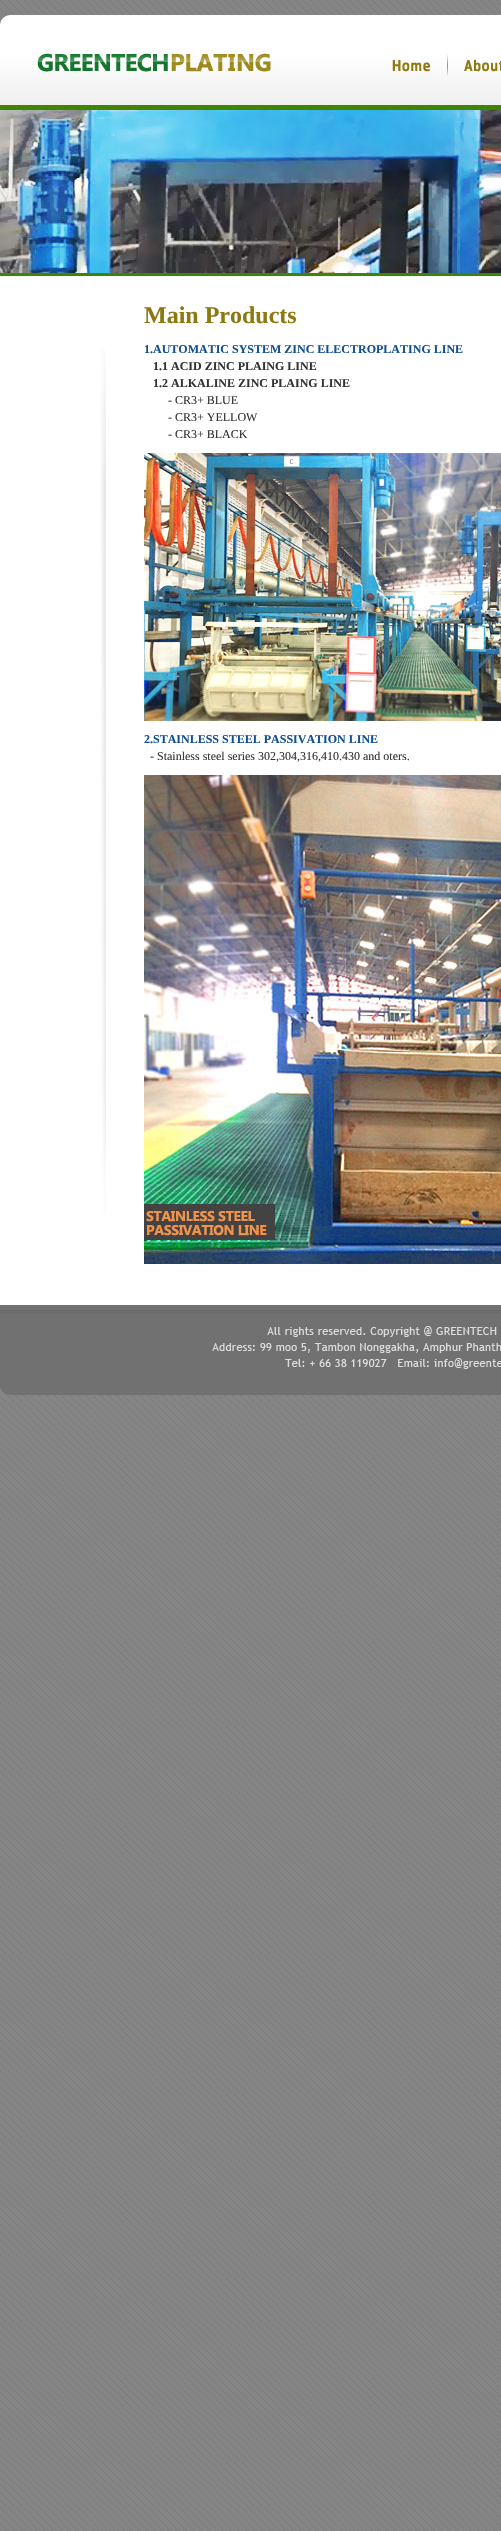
void draw(SkCanvas* canvas) {
    SkPaint paint;
    paint.setAntiAlias(true);
    auto face = [&](const char* family, int weight, float size, bool italic = false) {
        SkFontStyle style(weight, SkFontStyle::kNormal_Width,
            italic ? SkFontStyle::kItalic_Slant : SkFontStyle::kUpright_Slant);
        SkFont result(fontMgr->matchFamilyStyle(family, style), size);
        result.setSubpixel(true);
        return result;
    };
    auto write = [&](const char* s, float x, float y, const SkFont& font, SkColor color) {
        SkPaint ink(SkColor4f::FromColor(color));
        ink.setAntiAlias(true);
        canvas->drawString(s, x, y, font, ink);
    };
    auto block = [&](float x, float y, float w, float h, SkColor color) {
        SkPaint ink(SkColor4f::FromColor(color));
        ink.setAntiAlias(true);
        canvas->drawRect(SkRect::MakeXYWH(x, y, w, h), ink);
    };
    auto paste = [&](const char* path, float x, float y, float w, float h) {
        auto image = SkImages::DeferredFromEncodedData(SkData::MakeFromFileName(path));
        canvas->drawImageRect(image, SkRect::MakeXYWH(x, y, w, h), SkSamplingOptions());
    };
    canvas->clear(SK_ColorWHITE);
    paste("pic1.png", 0, 0, 501, 2531);
    paste("pic2.png", 0, 15, 501, 90);
    block(0, 277, 501, 1028, SK_ColorWHITE);
    paste("pic3.png", 0, 105, 501, 172);
    paste("pic4.png", 100, 350, 6, 864);
    auto kFont1 = face("Liberation Serif", 700, 24);
    write("Main Products", 144, 323, kFont1, SkColorSetRGB(140, 121, 17));
    auto kFont2 = face("Liberation Serif", 700, 12);
    write("1.AUTOMATIC SYSTEM ZINC ELECTROPLATING LINE", 144, 353, kFont2, SkColorSetRGB(18, 79, 143));
    write("1.1 ACID ZINC PLAING LINE", 153, 370, kFont2, SkColorSetRGB(51, 51, 51));
    write("1.2 ALKALINE ZINC PLAING LINE", 153, 387, kFont2, SkColorSetRGB(51, 51, 51));
    auto kFont3 = face("Liberation Serif", 400, 12);
    write("- CR3+ BLUE", 168, 404, kFont3, SkColorSetRGB(51, 51, 51));
    write("- CR3+ YELLOW", 168, 421, kFont3, SkColorSetRGB(51, 51, 51));
    write("- CR3+ BLACK", 168, 438, kFont3, SkColorSetRGB(51, 51, 51));
    paste("pic5.png", 144, 453, 357, 268);
    write("2.STAINLESS STEEL PASSIVATION LINE", 144, 743, kFont2, SkColorSetRGB(18, 79, 143));
    write("- Stainless steel series 302,304,316,410.430 and oters.", 150, 760, kFont3, SkColorSetRGB(51, 51, 51));
    paste("pic6.png", 144, 775, 357, 489);
    paste("pic7.png", 0, 1305, 501, 90);
}
